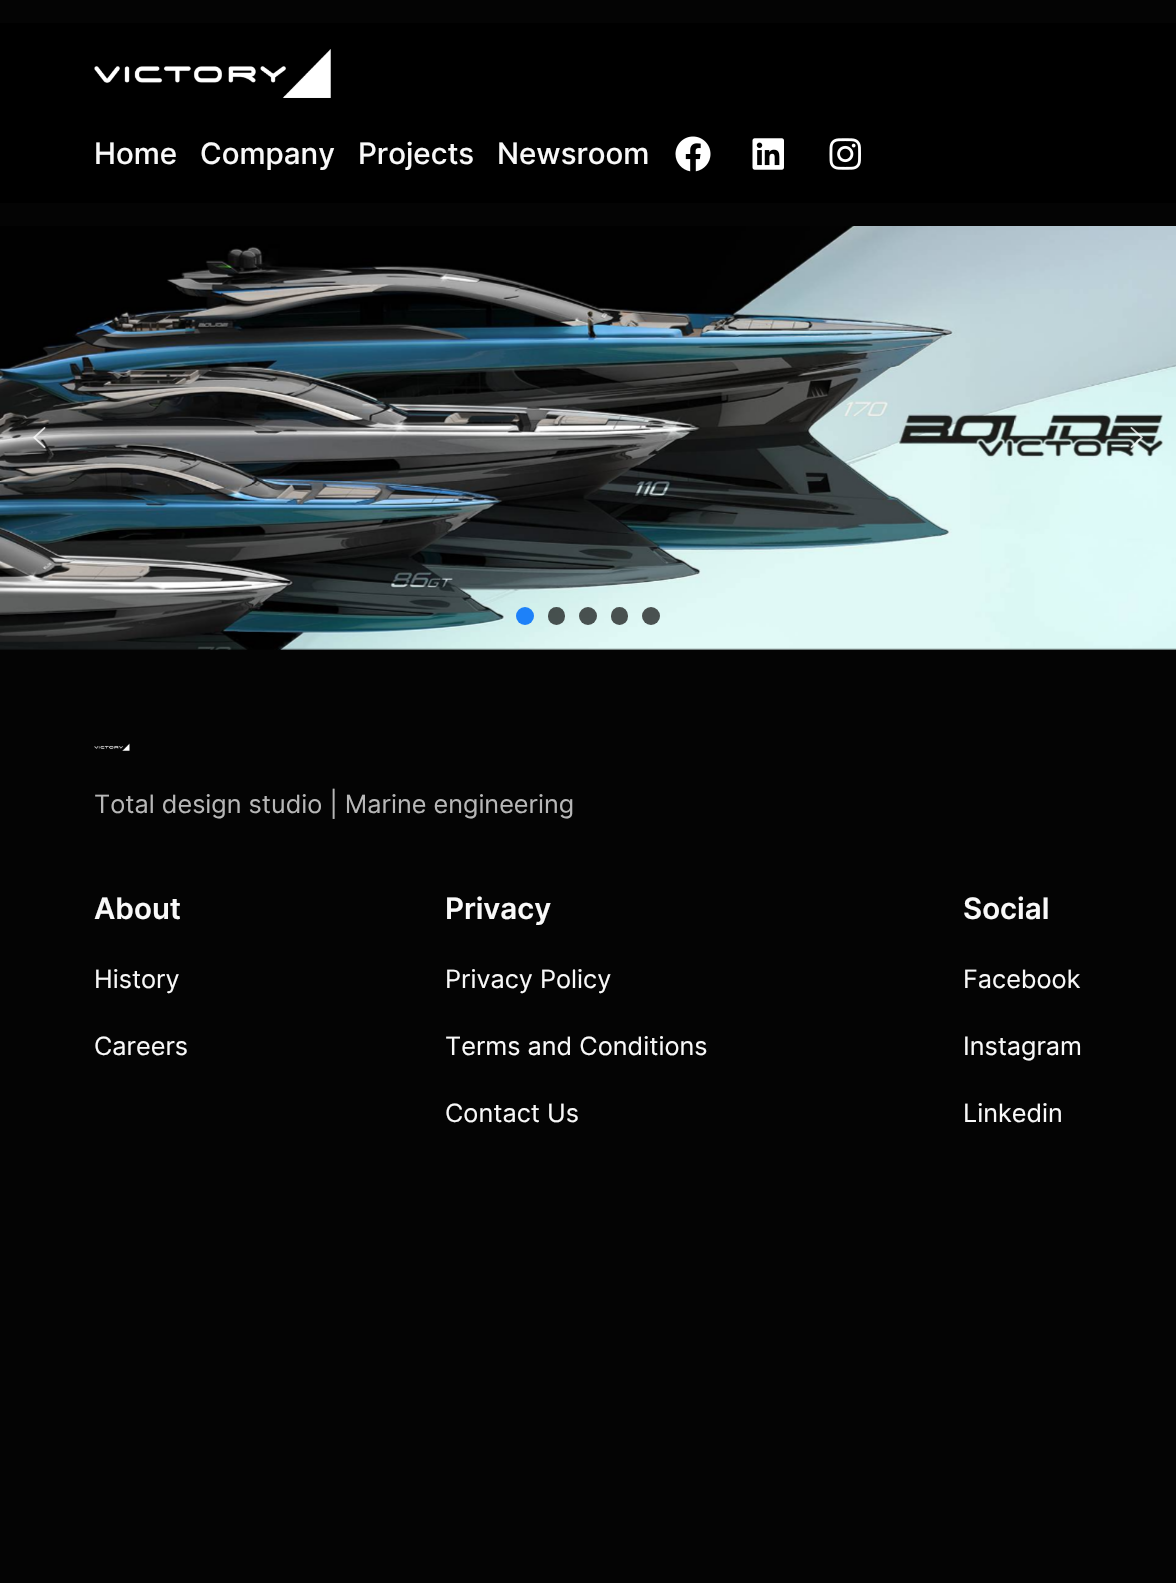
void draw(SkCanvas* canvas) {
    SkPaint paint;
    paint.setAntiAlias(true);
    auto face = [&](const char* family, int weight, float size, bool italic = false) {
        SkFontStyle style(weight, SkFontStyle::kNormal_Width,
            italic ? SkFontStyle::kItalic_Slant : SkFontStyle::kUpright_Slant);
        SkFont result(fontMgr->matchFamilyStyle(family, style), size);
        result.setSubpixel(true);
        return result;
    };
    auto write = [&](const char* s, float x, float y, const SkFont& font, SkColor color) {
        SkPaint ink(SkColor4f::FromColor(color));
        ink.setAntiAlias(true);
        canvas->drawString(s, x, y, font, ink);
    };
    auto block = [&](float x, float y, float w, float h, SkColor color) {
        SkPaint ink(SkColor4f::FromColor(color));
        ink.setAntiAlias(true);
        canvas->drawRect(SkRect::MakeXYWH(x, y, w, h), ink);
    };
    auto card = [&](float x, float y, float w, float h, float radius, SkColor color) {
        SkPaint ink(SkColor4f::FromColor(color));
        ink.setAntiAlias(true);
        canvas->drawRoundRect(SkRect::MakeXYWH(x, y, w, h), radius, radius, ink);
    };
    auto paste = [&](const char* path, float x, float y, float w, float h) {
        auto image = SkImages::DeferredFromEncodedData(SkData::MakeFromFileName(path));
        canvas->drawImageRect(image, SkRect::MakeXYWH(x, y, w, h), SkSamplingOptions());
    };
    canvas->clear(SkColorSetRGB(4, 4, 4));
    block(0, 23, 1176, 180, SK_ColorBLACK);
    paste("pic1.png", 94, 49, 237, 49);
    auto kFont1 = face("Inter", 500, 29.5f);
    write("Home", 94, 164, kFont1, SkColorSetRGB(249, 249, 249));
    write("Company", 200, 164, kFont1, SkColorSetRGB(249, 249, 249));
    write("Projects", 358, 164, kFont1, SkColorSetRGB(249, 249, 249));
    write("Newsroom", 497, 164, kFont1, SkColorSetRGB(249, 249, 249));
    paste("pic2.png", 675, 136, 36, 36);
    paste("pic3.png", 752, 138, 32, 32);
    paste("pic4.png", 829, 138, 32, 32);
    paste("pic5.png", 0, 226, 1176, 424);
    paste("pic6.png", 33, 427, 13, 21);
    paste("pic7.png", 1130, 427, 13, 21);
    paint.setColor(SkColorSetRGB(29, 129, 249));
    canvas->drawCircle(525, 616, 9, paint);
    card(548, 607, 17, 18, 8.5f, SkColorSetARGB(171, 0, 0, 0));
    paint.setColor(SkColorSetARGB(171, 0, 0, 0));
    canvas->drawCircle(588, 616, 9, paint);
    card(611, 607, 17, 18, 8.5f, SkColorSetRGB(73, 81, 80));
    canvas->drawCircle(651, 616, 9, paint);
    paste("pic8.png", 94, 743, 36, 8);
    auto kFont2 = face("Inter", 400, 25.25f);
    write("Total design studio | Marine engineering", 94, 813, kFont2, SkColorSetRGB(183, 183, 183));
    auto kFont3 = face("Inter", 600, 29.5f);
    write("About", 94, 919, kFont3, SkColorSetRGB(249, 249, 249));
    write("History", 94, 988, kFont2, SkColorSetRGB(249, 249, 249));
    write("Careers", 94, 1055, kFont2, SkColorSetRGB(249, 249, 249));
    write("Privacy", 445, 919, kFont3, SkColorSetRGB(249, 249, 249));
    write("Privacy Policy", 445, 988, kFont2, SkColorSetRGB(249, 249, 249));
    write("Terms and Conditions", 445, 1055, kFont2, SkColorSetRGB(249, 249, 249));
    write("Contact Us", 445, 1122, kFont2, SkColorSetRGB(249, 249, 249));
    write("Social", 963, 919, kFont3, SkColorSetRGB(249, 249, 249));
    write("Facebook", 963, 988, kFont2, SkColorSetRGB(249, 249, 249));
    write("Instagram", 963, 1055, kFont2, SkColorSetRGB(249, 249, 249));
    write("Linkedin", 963, 1122, kFont2, SkColorSetRGB(249, 249, 249));
}
